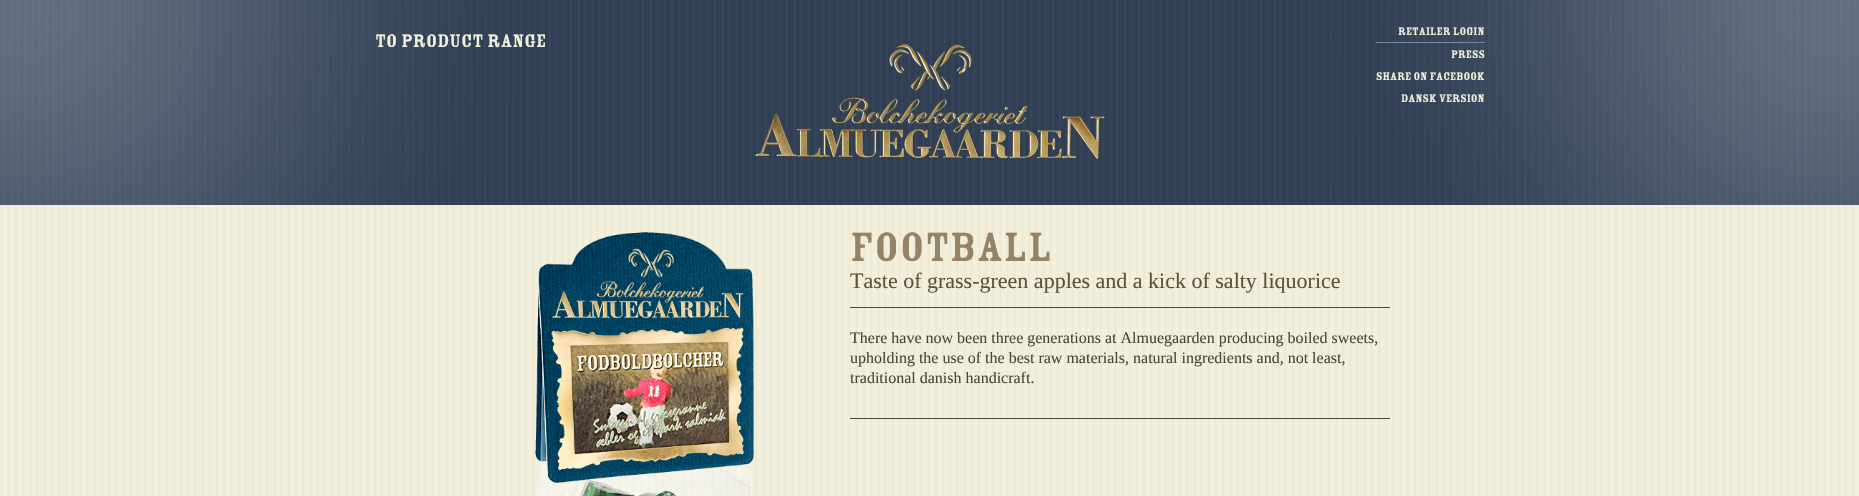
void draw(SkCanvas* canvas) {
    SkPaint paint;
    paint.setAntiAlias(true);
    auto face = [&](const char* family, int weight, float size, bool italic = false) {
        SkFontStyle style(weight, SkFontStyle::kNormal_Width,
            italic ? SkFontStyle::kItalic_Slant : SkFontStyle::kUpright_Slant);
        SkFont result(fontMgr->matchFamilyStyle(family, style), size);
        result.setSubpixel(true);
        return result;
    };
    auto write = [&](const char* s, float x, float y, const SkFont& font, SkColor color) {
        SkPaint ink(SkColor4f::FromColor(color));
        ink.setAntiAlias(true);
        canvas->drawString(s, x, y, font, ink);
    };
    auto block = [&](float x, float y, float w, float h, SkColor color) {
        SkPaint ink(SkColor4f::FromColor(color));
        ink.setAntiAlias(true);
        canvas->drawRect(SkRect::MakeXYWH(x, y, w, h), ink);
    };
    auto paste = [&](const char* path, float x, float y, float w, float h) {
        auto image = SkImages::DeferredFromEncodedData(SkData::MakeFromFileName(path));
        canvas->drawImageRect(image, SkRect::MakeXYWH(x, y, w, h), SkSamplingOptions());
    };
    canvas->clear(SkColorSetRGB(48, 63, 84));
    paste("pic1.png", 0, 0, 1859, 205);
    auto kFont1 = face("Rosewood", 500, 20);
    write("To product range", 375, 47, kFont1, SkColorSetRGB(242, 239, 220));
    auto kFont2 = face("Rosewood", 500, 12);
    write("Retailer login", 1398, 35, kFont2, SkColorSetRGB(242, 239, 220));
    block(1376, 42, 109, 1, SkColorSetRGB(118, 136, 158));
    write("Press", 1451, 58, kFont2, SkColorSetRGB(242, 239, 220));
    write("Share on facebook", 1376, 80, kFont2, SkColorSetRGB(242, 239, 220));
    write("Dansk version", 1401, 102, kFont2, SkColorSetRGB(242, 239, 220));
    paste("pic2.png", 755, 44, 350, 116);
    block(0, 205, 1859, 291, SkColorSetRGB(242, 239, 220));
    paste("pic3.png", 1, 205, 1853, 291);
    paste("pic4.png", 535, 232, 219, 264);
    auto kFont3 = face("Rosewood", 500, 45);
    write("Football", 850, 261, kFont3, SkColorSetRGB(150, 131, 102));
    auto kFont4 = face("Tinos", 400, 22);
    write("Taste of grass-green apples and a kick of salty liquorice", 850, 288, kFont4, SkColorSetRGB(95, 80, 57));
    block(850, 307, 540, 1, SkColorSetRGB(76, 70, 60));
    block(850, 418, 540, 1, SkColorSetRGB(76, 70, 60));
    auto kFont5 = face("Tinos", 400, 16);
    write("There have now been three generations at Almuegaarden producing boiled sweets,", 850, 343, kFont5, SkColorSetRGB(75, 69, 60));
    write("upholding the use of the best raw materials, natural ingredients and, not least,", 850, 363, kFont5, SkColorSetRGB(75, 69, 60));
    write("traditional danish handicraft.", 850, 383, kFont5, SkColorSetRGB(75, 69, 60));
}
